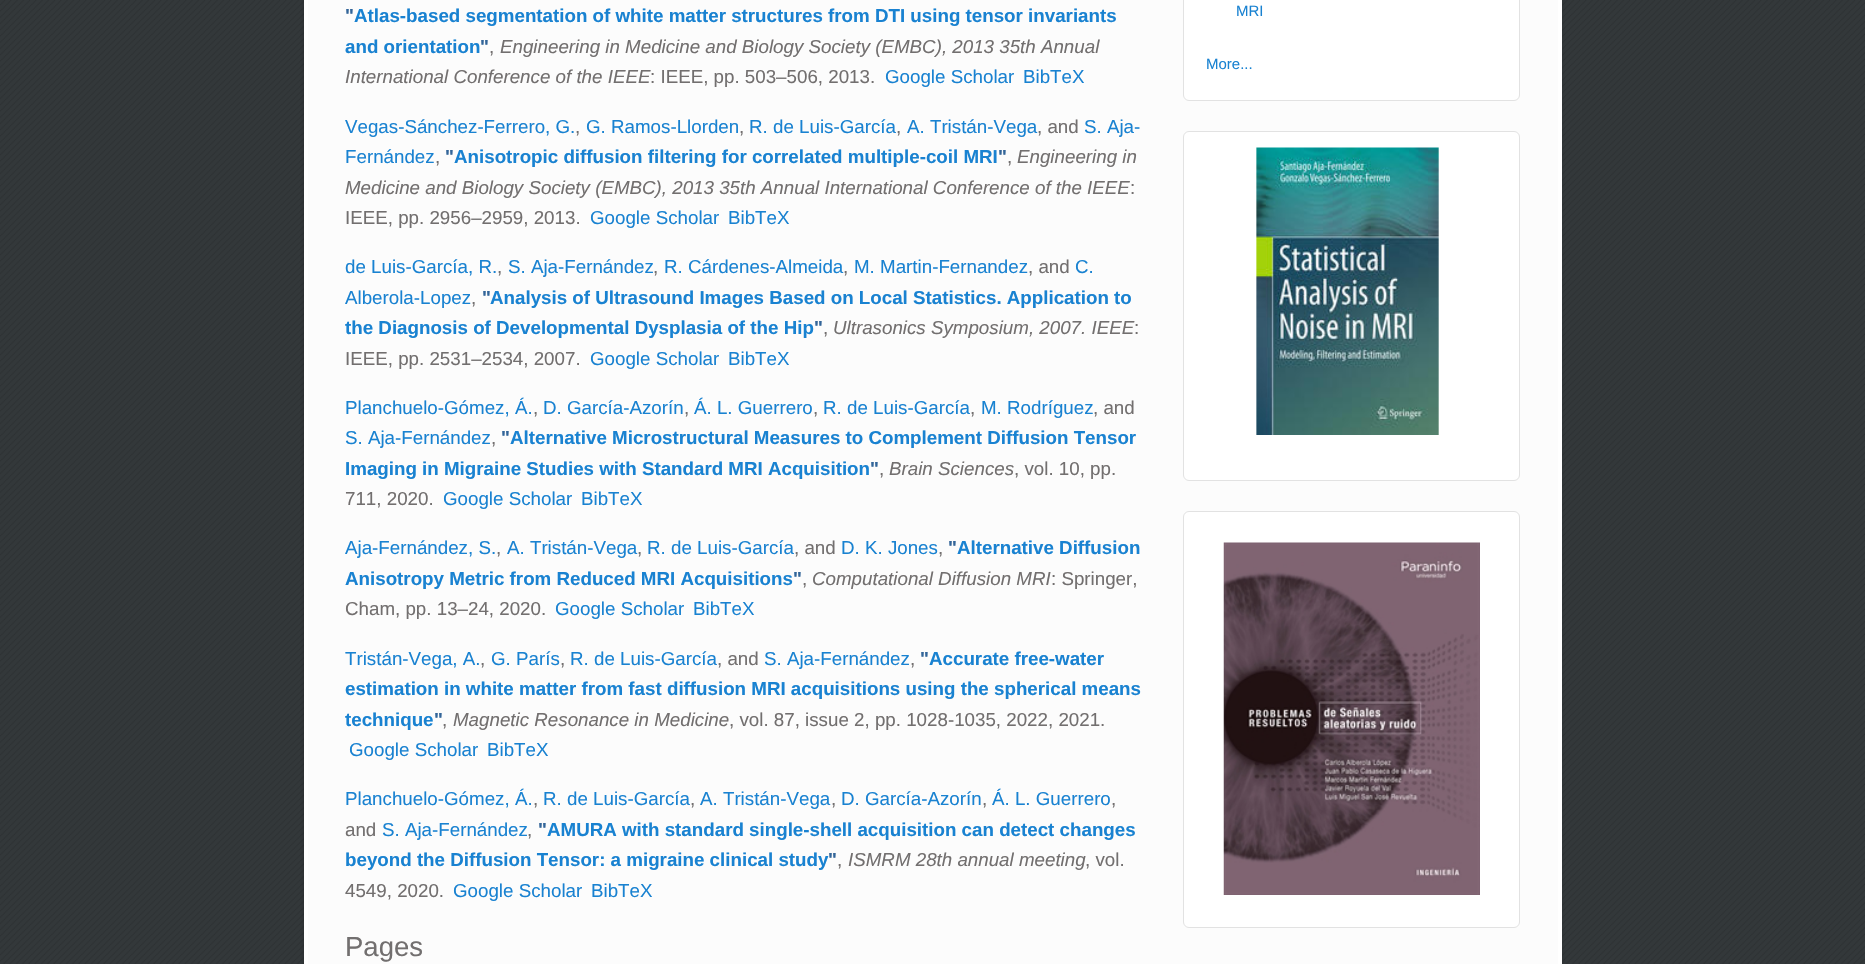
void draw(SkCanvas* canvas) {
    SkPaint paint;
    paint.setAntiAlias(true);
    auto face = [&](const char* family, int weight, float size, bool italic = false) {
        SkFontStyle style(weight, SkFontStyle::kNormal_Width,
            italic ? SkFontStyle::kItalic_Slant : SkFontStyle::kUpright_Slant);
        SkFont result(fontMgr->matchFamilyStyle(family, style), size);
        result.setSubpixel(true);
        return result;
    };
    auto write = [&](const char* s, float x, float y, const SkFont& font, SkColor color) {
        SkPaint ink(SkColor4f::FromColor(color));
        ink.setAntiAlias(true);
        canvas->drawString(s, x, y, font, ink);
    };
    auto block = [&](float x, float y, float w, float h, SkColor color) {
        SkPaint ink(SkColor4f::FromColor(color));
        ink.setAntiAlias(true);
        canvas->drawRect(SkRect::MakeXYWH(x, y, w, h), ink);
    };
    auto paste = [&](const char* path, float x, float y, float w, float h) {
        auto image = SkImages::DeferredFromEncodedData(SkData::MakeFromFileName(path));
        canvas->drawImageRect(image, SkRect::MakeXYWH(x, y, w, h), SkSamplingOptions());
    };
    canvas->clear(SkColorSetRGB(51, 56, 58));
    paste("pic1.png", 0, 0, 1865, 964);
    paint.setColor(SkColorSetARGB(51, 0, 0, 0));
    paint.setMaskFilter(SkMaskFilter::MakeBlur(kNormal_SkBlurStyle, 2.5f));
    canvas->drawRoundRect(SkRect::MakeXYWH(304, -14, 1257, 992), 6, 6, paint);
    paint.setMaskFilter(nullptr);
    block(1558, 0, 4, 964, SK_ColorWHITE);
    block(304, 0, 4, 964, SK_ColorWHITE);
    block(308, 0, 1250, 964, SkColorSetRGB(252, 252, 252));
    auto kFont1 = face("Liberation Sans", 700, 18.75f);
    write("\"", 345, 22, kFont1, SkColorSetRGB(51, 101, 153));
    write("Atlas-based segmentation of white matter structures from DTI using tensor invariants", 354, 22, kFont1, SkColorSetRGB(25, 130, 209));
    write("and orientation", 345, 53, kFont1, SkColorSetRGB(25, 130, 209));
    write("\"", 480, 53, kFont1, SkColorSetRGB(51, 101, 153));
    auto kFont2 = face("Liberation Sans", 400, 18.75f, true);
    write("Engineering in Medicine and Biology Society (EMBC), 2013 35th Annual", 500, 53, kFont2, SkColorSetRGB(114, 111, 111));
    auto kFont3 = face("Liberation Sans", 400, 18.75f);
    write(",", 489, 53, kFont3, SkColorSetRGB(114, 111, 111));
    write("International Conference of the IEEE", 345, 83, kFont2, SkColorSetRGB(114, 111, 111));
    write(": IEEE, pp. 503–506, 2013.", 650, 83, kFont3, SkColorSetRGB(114, 111, 111));
    write("Google Scholar", 885, 83, kFont3, SkColorSetRGB(25, 130, 209));
    write("BibTeX", 1023, 83, kFont3, SkColorSetRGB(25, 130, 209));
    write("Vegas-Sánchez-Ferrero, G.", 345, 133, kFont3, SkColorSetRGB(25, 130, 209));
    write(",", 575, 133, kFont3, SkColorSetRGB(114, 111, 111));
    write("G. Ramos-Llorden", 586, 133, kFont3, SkColorSetRGB(25, 130, 209));
    write(",", 739, 133, kFont3, SkColorSetRGB(114, 111, 111));
    write("R. de Luis-García", 749, 133, kFont3, SkColorSetRGB(25, 130, 209));
    write(",", 896, 133, kFont3, SkColorSetRGB(114, 111, 111));
    write("A. Tristán-Vega", 907, 133, kFont3, SkColorSetRGB(25, 130, 209));
    write(", and", 1037, 133, kFont3, SkColorSetRGB(114, 111, 111));
    write("S. Aja-", 1084, 133, kFont3, SkColorSetRGB(25, 130, 209));
    write("Fernández", 345, 163, kFont3, SkColorSetRGB(25, 130, 209));
    write("\"", 445, 163, kFont1, SkColorSetRGB(51, 101, 153));
    write("Anisotropic diffusion filtering for correlated multiple-coil MRI", 454, 163, kFont1, SkColorSetRGB(25, 130, 209));
    write("\"", 998, 163, kFont1, SkColorSetRGB(51, 101, 153));
    write("Engineering in", 1017, 163, kFont2, SkColorSetRGB(114, 111, 111));
    write(",", 435, 163, kFont3, SkColorSetRGB(114, 111, 111));
    write(",", 1007, 163, kFont3, SkColorSetRGB(114, 111, 111));
    write("Medicine and Biology Society (EMBC), 2013 35th Annual International Conference of the IEEE", 345, 194, kFont2, SkColorSetRGB(114, 111, 111));
    write(":", 1130, 194, kFont3, SkColorSetRGB(114, 111, 111));
    write("IEEE, pp. 2956–2959, 2013.", 345, 224, kFont3, SkColorSetRGB(114, 111, 111));
    write("Google Scholar", 590, 224, kFont3, SkColorSetRGB(25, 130, 209));
    write("BibTeX", 728, 224, kFont3, SkColorSetRGB(25, 130, 209));
    write("de Luis-García, R.", 345, 273, kFont3, SkColorSetRGB(25, 130, 209));
    write(",", 497, 273, kFont3, SkColorSetRGB(114, 111, 111));
    write("S. Aja-Fernández", 508, 273, kFont3, SkColorSetRGB(25, 130, 209));
    write(",", 653, 273, kFont3, SkColorSetRGB(114, 111, 111));
    write("R. Cárdenes-Almeida", 664, 273, kFont3, SkColorSetRGB(25, 130, 209));
    write(",", 843, 273, kFont3, SkColorSetRGB(114, 111, 111));
    write("M. Martin-Fernandez", 854, 273, kFont3, SkColorSetRGB(25, 130, 209));
    write(", and", 1028, 273, kFont3, SkColorSetRGB(114, 111, 111));
    write("C.", 1075, 273, kFont3, SkColorSetRGB(25, 130, 209));
    write("Alberola-Lopez", 345, 304, kFont3, SkColorSetRGB(25, 130, 209));
    write("\"", 482, 304, kFont1, SkColorSetRGB(51, 101, 153));
    write("Analysis of Ultrasound Images Based on Local Statistics. Application to", 490, 304, kFont1, SkColorSetRGB(25, 130, 209));
    write(",", 471, 304, kFont3, SkColorSetRGB(114, 111, 111));
    write("the Diagnosis of Developmental Dysplasia of the Hip", 345, 334, kFont1, SkColorSetRGB(25, 130, 209));
    write("\"", 814, 334, kFont1, SkColorSetRGB(51, 101, 153));
    write("Ultrasonics Symposium, 2007. IEEE", 833, 334, kFont2, SkColorSetRGB(114, 111, 111));
    write(":", 1134, 334, kFont3, SkColorSetRGB(114, 111, 111));
    write(",", 823, 334, kFont3, SkColorSetRGB(114, 111, 111));
    write("IEEE, pp. 2531–2534, 2007.", 345, 365, kFont3, SkColorSetRGB(114, 111, 111));
    write("Google Scholar", 590, 365, kFont3, SkColorSetRGB(25, 130, 209));
    write("BibTeX", 728, 365, kFont3, SkColorSetRGB(25, 130, 209));
    write("Planchuelo-Gómez, Á.", 345, 414, kFont3, SkColorSetRGB(25, 130, 209));
    write(",", 533, 414, kFont3, SkColorSetRGB(114, 111, 111));
    write("D. García-Azorín", 543, 414, kFont3, SkColorSetRGB(25, 130, 209));
    write(",", 684, 414, kFont3, SkColorSetRGB(114, 111, 111));
    write("Á. L. Guerrero", 694, 414, kFont3, SkColorSetRGB(25, 130, 209));
    write(",", 813, 414, kFont3, SkColorSetRGB(114, 111, 111));
    write("R. de Luis-García", 823, 414, kFont3, SkColorSetRGB(25, 130, 209));
    write(",", 970, 414, kFont3, SkColorSetRGB(114, 111, 111));
    write("M. Rodríguez", 981, 414, kFont3, SkColorSetRGB(25, 130, 209));
    write(", and", 1093, 414, kFont3, SkColorSetRGB(114, 111, 111));
    write("S. Aja-Fernández", 345, 444, kFont3, SkColorSetRGB(25, 130, 209));
    write("\"", 501, 444, kFont1, SkColorSetRGB(51, 101, 153));
    write("Alternative Microstructural Measures to Complement Diffusion Tensor", 510, 444, kFont1, SkColorSetRGB(25, 130, 209));
    write(",", 491, 444, kFont3, SkColorSetRGB(114, 111, 111));
    write("Imaging in Migraine Studies with Standard MRI Acquisition", 345, 475, kFont1, SkColorSetRGB(25, 130, 209));
    write("\"", 870, 475, kFont1, SkColorSetRGB(51, 101, 153));
    write("Brain Sciences", 889, 475, kFont2, SkColorSetRGB(114, 111, 111));
    write(", vol. 10, pp.", 1014, 475, kFont3, SkColorSetRGB(114, 111, 111));
    write(",", 879, 475, kFont3, SkColorSetRGB(114, 111, 111));
    write("711, 2020.", 345, 505, kFont3, SkColorSetRGB(114, 111, 111));
    write("Google Scholar", 443, 505, kFont3, SkColorSetRGB(25, 130, 209));
    write("BibTeX", 581, 505, kFont3, SkColorSetRGB(25, 130, 209));
    write("Aja-Fernández, S.", 345, 554, kFont3, SkColorSetRGB(25, 130, 209));
    write("A. Tristán-Vega", 507, 554, kFont3, SkColorSetRGB(25, 130, 209));
    write("R. de Luis-García", 647, 554, kFont3, SkColorSetRGB(25, 130, 209));
    write(", and", 794, 554, kFont3, SkColorSetRGB(114, 111, 111));
    write("D. K. Jones", 841, 554, kFont3, SkColorSetRGB(25, 130, 209));
    write("\"", 948, 554, kFont1, SkColorSetRGB(51, 101, 153));
    write("Alternative Diffusion", 957, 554, kFont1, SkColorSetRGB(25, 130, 209));
    write(",", 496, 554, kFont3, SkColorSetRGB(114, 111, 111));
    write(",", 637, 554, kFont3, SkColorSetRGB(114, 111, 111));
    write(",", 938, 554, kFont3, SkColorSetRGB(114, 111, 111));
    write("Anisotropy Metric from Reduced MRI Acquisitions", 345, 585, kFont1, SkColorSetRGB(25, 130, 209));
    write("\"", 793, 585, kFont1, SkColorSetRGB(51, 101, 153));
    write("Computational Diffusion MRI", 812, 585, kFont2, SkColorSetRGB(114, 111, 111));
    write(": Springer,", 1051, 585, kFont3, SkColorSetRGB(114, 111, 111));
    write(",", 802, 585, kFont3, SkColorSetRGB(114, 111, 111));
    write("Cham, pp. 13–24, 2020.", 345, 615, kFont3, SkColorSetRGB(114, 111, 111));
    write("Google Scholar", 555, 615, kFont3, SkColorSetRGB(25, 130, 209));
    write("BibTeX", 693, 615, kFont3, SkColorSetRGB(25, 130, 209));
    write("Tristán-Vega, A.", 345, 665, kFont3, SkColorSetRGB(25, 130, 209));
    write("G. París", 491, 665, kFont3, SkColorSetRGB(25, 130, 209));
    write("R. de Luis-García", 570, 665, kFont3, SkColorSetRGB(25, 130, 209));
    write(", and", 717, 665, kFont3, SkColorSetRGB(114, 111, 111));
    write("S. Aja-Fernández", 764, 665, kFont3, SkColorSetRGB(25, 130, 209));
    write("\"", 920, 665, kFont1, SkColorSetRGB(51, 101, 153));
    write("Accurate free-water", 929, 665, kFont1, SkColorSetRGB(25, 130, 209));
    write(",", 480, 665, kFont3, SkColorSetRGB(114, 111, 111));
    write(",", 560, 665, kFont3, SkColorSetRGB(114, 111, 111));
    write(",", 910, 665, kFont3, SkColorSetRGB(114, 111, 111));
    write("estimation in white matter from fast diffusion MRI acquisitions using the spherical means", 345, 695, kFont1, SkColorSetRGB(25, 130, 209));
    write("technique", 345, 726, kFont1, SkColorSetRGB(25, 130, 209));
    write("\"", 434, 726, kFont1, SkColorSetRGB(51, 101, 153));
    write("Magnetic Resonance in Medicine", 453, 726, kFont2, SkColorSetRGB(114, 111, 111));
    write(", vol. 87, issue 2, pp. 1028-1035, 2022, 2021.", 729, 726, kFont3, SkColorSetRGB(114, 111, 111));
    write(",", 442, 726, kFont3, SkColorSetRGB(114, 111, 111));
    write("Google Scholar", 349, 756, kFont3, SkColorSetRGB(25, 130, 209));
    write("BibTeX", 487, 756, kFont3, SkColorSetRGB(25, 130, 209));
    write("Planchuelo-Gómez, Á.", 345, 805, kFont3, SkColorSetRGB(25, 130, 209));
    write(",", 533, 805, kFont3, SkColorSetRGB(114, 111, 111));
    write("R. de Luis-García", 543, 805, kFont3, SkColorSetRGB(25, 130, 209));
    write(",", 690, 805, kFont3, SkColorSetRGB(114, 111, 111));
    write("A. Tristán-Vega", 700, 805, kFont3, SkColorSetRGB(25, 130, 209));
    write(",", 831, 805, kFont3, SkColorSetRGB(114, 111, 111));
    write("D. García-Azorín", 841, 805, kFont3, SkColorSetRGB(25, 130, 209));
    write(",", 982, 805, kFont3, SkColorSetRGB(114, 111, 111));
    write("Á. L. Guerrero", 992, 805, kFont3, SkColorSetRGB(25, 130, 209));
    write(",", 1111, 805, kFont3, SkColorSetRGB(114, 111, 111));
    write("and", 345, 836, kFont3, SkColorSetRGB(114, 111, 111));
    write("S. Aja-Fernández", 382, 836, kFont3, SkColorSetRGB(25, 130, 209));
    write("\"", 538, 836, kFont1, SkColorSetRGB(51, 101, 153));
    write("AMURA with standard single-shell acquisition can detect changes", 547, 836, kFont1, SkColorSetRGB(25, 130, 209));
    write(",", 527, 836, kFont3, SkColorSetRGB(114, 111, 111));
    write("beyond the Diffusion Tensor: a migraine clinical study", 345, 866, kFont1, SkColorSetRGB(25, 130, 209));
    write("\"", 828, 866, kFont1, SkColorSetRGB(51, 101, 153));
    write("ISMRM 28th annual meeting", 848, 866, kFont2, SkColorSetRGB(114, 111, 111));
    write(", vol.", 1085, 866, kFont3, SkColorSetRGB(114, 111, 111));
    write(",", 837, 866, kFont3, SkColorSetRGB(114, 111, 111));
    write("4549, 2020.", 345, 897, kFont3, SkColorSetRGB(114, 111, 111));
    write("Google Scholar", 453, 897, kFont3, SkColorSetRGB(25, 130, 209));
    write("BibTeX", 591, 897, kFont3, SkColorSetRGB(25, 130, 209));
    auto kFont4 = face("Liberation Sans", 400, 27.5f);
    write("Pages", 345, 956, kFont4, SkColorSetRGB(114, 111, 111));
    paint.setColor(SK_ColorWHITE);
    canvas->drawRoundRect(SkRect::MakeXYWH(1183.5f, -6.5f, 336, 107), 5.5f, 5.5f, paint);
    paint.setStyle(SkPaint::kStroke_Style);
    paint.setStrokeWidth(1);
    paint.setColor(SkColorSetRGB(226, 226, 226));
    canvas->drawRoundRect(SkRect::MakeXYWH(1183.5f, -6.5f, 336, 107), 5.5f, 5.5f, paint);
    auto kFont5 = face("Liberation Sans", 400, 15);
    write("MRI", 1236, 16, kFont5, SkColorSetRGB(25, 130, 209));
    write("More...", 1206, 69, kFont5, SkColorSetRGB(25, 130, 209));
    paint.setStyle(SkPaint::kFill_Style);
    paint.setColor(SK_ColorWHITE);
    canvas->drawRoundRect(SkRect::MakeXYWH(1183.5f, 131.5f, 336, 349), 5.5f, 5.5f, paint);
    paint.setStyle(SkPaint::kStroke_Style);
    paint.setColor(SkColorSetRGB(226, 226, 226));
    canvas->drawRoundRect(SkRect::MakeXYWH(1183.5f, 131.5f, 336, 349), 5.5f, 5.5f, paint);
    paste("pic2.png", 1256, 147, 183, 288);
    paint.setStyle(SkPaint::kFill_Style);
    paint.setColor(SK_ColorWHITE);
    canvas->drawRoundRect(SkRect::MakeXYWH(1183.5f, 511.5f, 336, 416), 5.5f, 5.5f, paint);
    paint.setStyle(SkPaint::kStroke_Style);
    paint.setColor(SkColorSetRGB(226, 226, 226));
    canvas->drawRoundRect(SkRect::MakeXYWH(1183.5f, 511.5f, 336, 416), 5.5f, 5.5f, paint);
    paste("pic3.png", 1223, 542, 257, 353);
}
